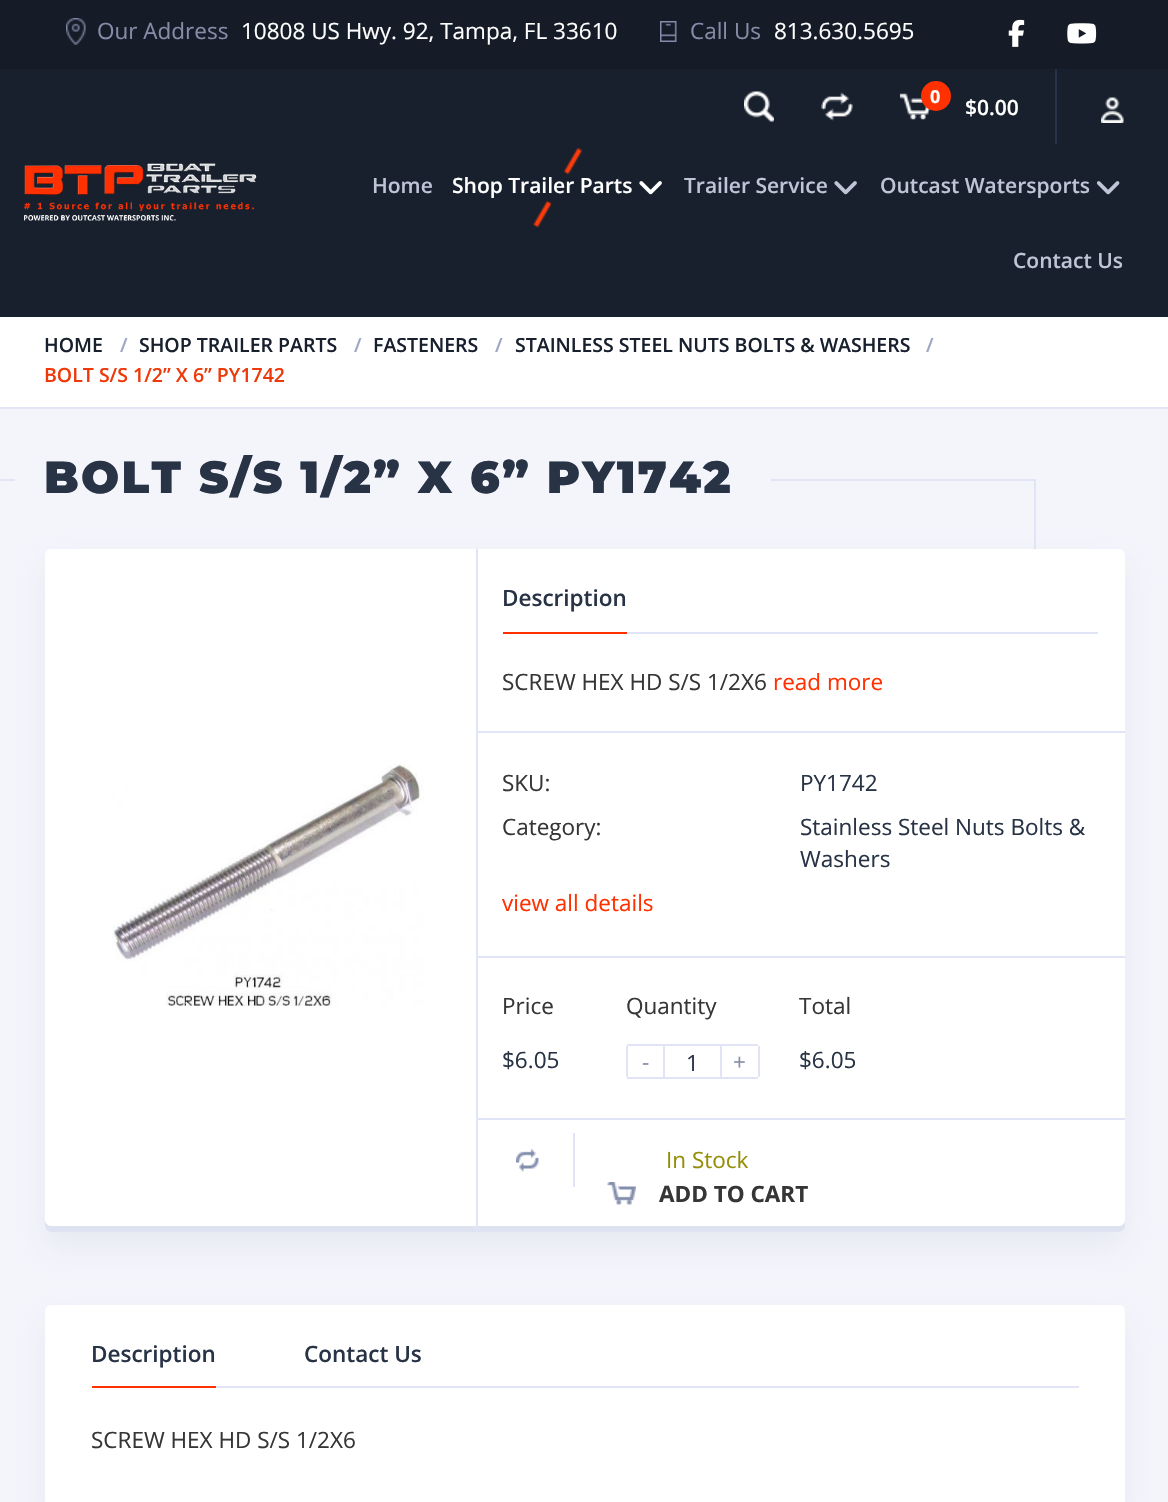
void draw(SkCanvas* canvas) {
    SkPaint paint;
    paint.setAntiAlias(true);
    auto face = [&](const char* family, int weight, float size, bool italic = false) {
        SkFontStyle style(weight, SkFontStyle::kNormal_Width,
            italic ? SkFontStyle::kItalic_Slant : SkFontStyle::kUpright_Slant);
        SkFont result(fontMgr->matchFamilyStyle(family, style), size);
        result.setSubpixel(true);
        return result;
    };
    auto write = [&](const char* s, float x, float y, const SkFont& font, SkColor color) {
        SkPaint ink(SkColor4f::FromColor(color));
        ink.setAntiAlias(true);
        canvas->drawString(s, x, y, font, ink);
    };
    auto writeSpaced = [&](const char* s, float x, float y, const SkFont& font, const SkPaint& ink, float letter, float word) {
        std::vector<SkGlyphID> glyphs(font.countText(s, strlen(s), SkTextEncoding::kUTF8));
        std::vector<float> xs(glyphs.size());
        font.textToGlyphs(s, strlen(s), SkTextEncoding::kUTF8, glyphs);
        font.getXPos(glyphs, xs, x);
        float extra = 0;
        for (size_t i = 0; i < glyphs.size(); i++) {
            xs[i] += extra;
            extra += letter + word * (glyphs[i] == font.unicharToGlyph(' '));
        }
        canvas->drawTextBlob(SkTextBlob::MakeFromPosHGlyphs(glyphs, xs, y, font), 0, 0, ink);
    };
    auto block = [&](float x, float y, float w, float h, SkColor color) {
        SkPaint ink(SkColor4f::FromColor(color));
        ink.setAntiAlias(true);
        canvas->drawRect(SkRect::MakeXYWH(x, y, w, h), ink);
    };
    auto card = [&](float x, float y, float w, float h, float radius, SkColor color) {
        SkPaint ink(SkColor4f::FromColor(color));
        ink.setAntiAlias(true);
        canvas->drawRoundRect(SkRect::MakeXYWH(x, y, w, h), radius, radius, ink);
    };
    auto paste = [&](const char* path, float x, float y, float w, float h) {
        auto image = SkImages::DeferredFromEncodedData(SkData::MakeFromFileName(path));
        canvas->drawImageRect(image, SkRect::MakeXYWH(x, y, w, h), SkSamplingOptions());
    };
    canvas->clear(SkColorSetRGB(244, 245, 251));
    block(0, 0, 1168, 69, SkColorSetRGB(21, 28, 40));
    paste("pic1.png", 66, 18, 20, 27);
    auto kFont1 = face("Open Sans", 400, 22.5f);
    write("Our Address", 97, 39, kFont1, SkColorSetRGB(134, 140, 167));
    write("10808 US Hwy. 92, Tampa, FL 33610", 241, 39, kFont1, SK_ColorWHITE);
    paste("pic2.png", 660, 21, 17, 21);
    write("Call Us", 690, 39, kFont1, SkColorSetRGB(134, 140, 167));
    write("813.630.5695", 774, 39, kFont1, SK_ColorWHITE);
    paste("pic3.png", 1008, 19, 17, 28);
    paste("pic4.png", 1067, 23, 30, 21);
    block(0, 69, 1168, 248, SkColorSetRGB(24, 32, 46));
    paste("pic5.png", 744, 91, 30, 31);
    paste("pic6.png", 821, 92, 32, 29);
    paste("pic7.png", 900, 93, 31, 27);
    paint.setColor(SkColorSetRGB(255, 49, 0));
    canvas->drawCircle(936, 96, 15, paint);
    auto kFont2 = face("Open Sans", 700, 18);
    write("0", 930, 103, kFont2, SK_ColorWHITE);
    auto kFont3 = face("Open Sans", 600, 21);
    write("$0.00", 965, 115, kFont3, SK_ColorWHITE);
    block(1055, 69, 2, 75, SkColorSetRGB(38, 51, 73));
    paste("pic8.png", 1101, 97, 23, 26);
    paste("pic9.png", 24, 163, 233, 58);
    write("Home", 372, 193, kFont3, SkColorSetRGB(192, 196, 215));
    paste("pic10.png", 533, 148, 49, 80);
    write("Shop Trailer Parts", 452, 193, kFont3, SK_ColorWHITE);
    paste("pic11.png", 639, 181, 23, 14);
    write("Trailer Service", 684, 193, kFont3, SkColorSetRGB(192, 196, 215));
    paste("pic12.png", 834, 181, 23, 14);
    write("Outcast Watersports", 880, 193, kFont3, SkColorSetRGB(192, 196, 215));
    paste("pic13.png", 1096, 181, 24, 14);
    write("Contact Us", 1013, 268, kFont3, SkColorSetRGB(192, 196, 215));
    block(0, 317, 1168, 90, SK_ColorWHITE);
    block(0, 407, 1168, 2, SkColorSetRGB(224, 228, 246));
    auto kFont4 = face("Open Sans", 600, 19.5f);
    write("HOME", 44, 352, kFont4, SkColorSetRGB(24, 32, 46));
    write("/", 120, 352, kFont4, SkColorSetRGB(160, 166, 197));
    write("SHOP TRAILER PARTS", 139, 352, kFont4, SkColorSetRGB(24, 32, 46));
    write("/", 354, 352, kFont4, SkColorSetRGB(160, 166, 197));
    write("FASTENERS", 373, 352, kFont4, SkColorSetRGB(24, 32, 46));
    write("/", 495, 352, kFont4, SkColorSetRGB(160, 166, 197));
    write("STAINLESS STEEL NUTS BOLTS & WASHERS", 515, 352, kFont4, SkColorSetRGB(24, 32, 46));
    write("/", 926, 352, kFont4, SkColorSetRGB(160, 166, 197));
    write("BOLT S/S 1/2” X 6” PY1742", 44, 382, kFont4, SkColorSetRGB(238, 58, 11));
    block(0, 479, 15, 2, SkColorSetRGB(224, 228, 246));
    auto kFont5 = face("Montserrat", 900, 45);
    paint.setColor(SkColorSetRGB(40, 51, 70));
    writeSpaced("BOLT S/S 1/2” X 6” PY1742", 44, 493, kFont5, paint, 2.25f, 0);
    block(771, 479, 264, 2, SkColorSetRGB(224, 228, 246));
    block(1034, 479, 2, 70, SkColorSetRGB(224, 228, 246));
    paint.setColor(SkColorSetARGB(64, 192, 196, 215));
    paint.setMaskFilter(SkMaskFilter::MakeBlur(kNormal_SkBlurStyle, 15));
    canvas->drawRoundRect(SkRect::MakeXYWH(45, 564, 1080, 683), 6, 6, paint);
    paint.setMaskFilter(nullptr);
    card(45, 549, 1080, 683, 6, SK_ColorWHITE);
    paint.setColor(SkColorSetRGB(223, 226, 240));
    canvas->drawPath(SkPathBuilder().moveTo(45, 1220).lineTo(45, 1226).cubicTo(45, 1229, 48, 1232, 51, 1232).lineTo(1119, 1232).cubicTo(1122, 1232, 1125, 1229, 1125, 1226).lineTo(1125, 1220).cubicTo(1125, 1223, 1122, 1226, 1119, 1226).lineTo(51, 1226).cubicTo(48, 1226, 45, 1223, 45, 1220).close().detach(), paint);
    block(477, 731, 648, 2, SkColorSetRGB(224, 228, 246));
    block(477, 956, 648, 2, SkColorSetRGB(224, 228, 246));
    block(477, 1118, 648, 2, SkColorSetRGB(224, 228, 246));
    block(476, 549, 2, 683, SkColorSetRGB(224, 228, 246));
    paste("pic14.png", 112, 762, 312, 244);
    block(627, 632, 471, 2, SkColorSetRGB(224, 228, 246));
    auto kFont6 = face("Open Sans", 600, 22.5f);
    write("Description", 502, 606, kFont6, SkColorSetRGB(40, 51, 70));
    block(503, 632, 124, 2, SkColorSetRGB(255, 49, 0));
    write("SCREW HEX HD S/S 1/2X6", 502, 690, kFont1, SkColorSetRGB(54, 54, 54));
    write("read more", 773, 690, kFont1, SkColorSetRGB(255, 49, 0));
    write("SKU:", 502, 791, kFont1, SkColorSetRGB(54, 54, 54));
    write("PY1742", 800, 791, kFont1, SkColorSetRGB(40, 51, 70));
    write("Category:", 502, 835, kFont1, SkColorSetRGB(54, 54, 54));
    write("Stainless Steel Nuts Bolts &", 800, 835, kFont1, SkColorSetRGB(40, 51, 70));
    write("Washers", 800, 867, kFont1, SkColorSetRGB(40, 51, 70));
    write("view all details", 502, 911, kFont1, SkColorSetRGB(255, 49, 0));
    write("Price", 502, 1014, kFont1, SkColorSetRGB(54, 54, 54));
    write("$6.05", 502, 1068, kFont1, SkColorSetRGB(40, 51, 70));
    write("Quantity", 626, 1014, kFont1, SkColorSetRGB(54, 54, 54));
    block(627, 1044, 36, 2, SkColorSetRGB(224, 228, 246));
    block(627, 1077, 36, 2, SkColorSetRGB(224, 228, 246));
    block(626, 1046, 2, 31, SkColorSetRGB(224, 228, 246));
    write("-", 642, 1070, kFont1, SkColorSetRGB(134, 140, 167));
    paint.setStyle(SkPaint::kStroke_Style);
    paint.setStrokeWidth(2);
    paint.setColor(SkColorSetRGB(224, 228, 246));
    canvas->drawRect(SkRect::MakeXYWH(664, 1045, 57, 33), paint);
    write("1", 686, 1071, kFont1, SkColorSetRGB(40, 51, 70));
    block(722, 1044, 36, 2, SkColorSetRGB(224, 228, 246));
    block(758, 1046, 2, 31, SkColorSetRGB(224, 228, 246));
    block(722, 1077, 36, 2, SkColorSetRGB(224, 228, 246));
    write("+", 733, 1070, kFont1, SkColorSetRGB(134, 140, 167));
    write("Total", 799, 1014, kFont1, SkColorSetRGB(54, 54, 54));
    write("$6.05", 799, 1068, kFont1, SkColorSetRGB(40, 51, 70));
    paste("pic15.png", 516, 1149, 23, 23);
    block(573, 1133, 2, 54, SkColorSetRGB(224, 228, 246));
    write("In Stock", 666, 1168, kFont1, SkColorSetRGB(149, 142, 9));
    paste("pic16.png", 607, 1182, 29, 23);
    auto kFont7 = face("Open Sans", 700, 22.5f);
    write("ADD TO CART", 659, 1202, kFont7, SkColorSetRGB(54, 54, 54));
    paint.setStyle(SkPaint::kFill_Style);
    paint.setColor(SkColorSetARGB(64, 192, 196, 215));
    paint.setMaskFilter(SkMaskFilter::MakeBlur(kNormal_SkBlurStyle, 15));
    canvas->drawRoundRect(SkRect::MakeXYWH(45, 1320, 1080, 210), 6, 6, paint);
    paint.setMaskFilter(nullptr);
    card(45, 1305, 1080, 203, 6, SK_ColorWHITE);
    write("Description", 91, 1362, kFont6, SkColorSetRGB(40, 51, 70));
    block(92, 1386, 124, 2, SkColorSetRGB(255, 49, 0));
    write("Contact Us", 304, 1362, kFont6, SkColorSetRGB(40, 51, 70));
    block(216, 1386, 863, 2, SkColorSetRGB(224, 228, 246));
    write("SCREW HEX HD S/S 1/2X6", 91, 1448, kFont1, SkColorSetRGB(54, 54, 54));
}
